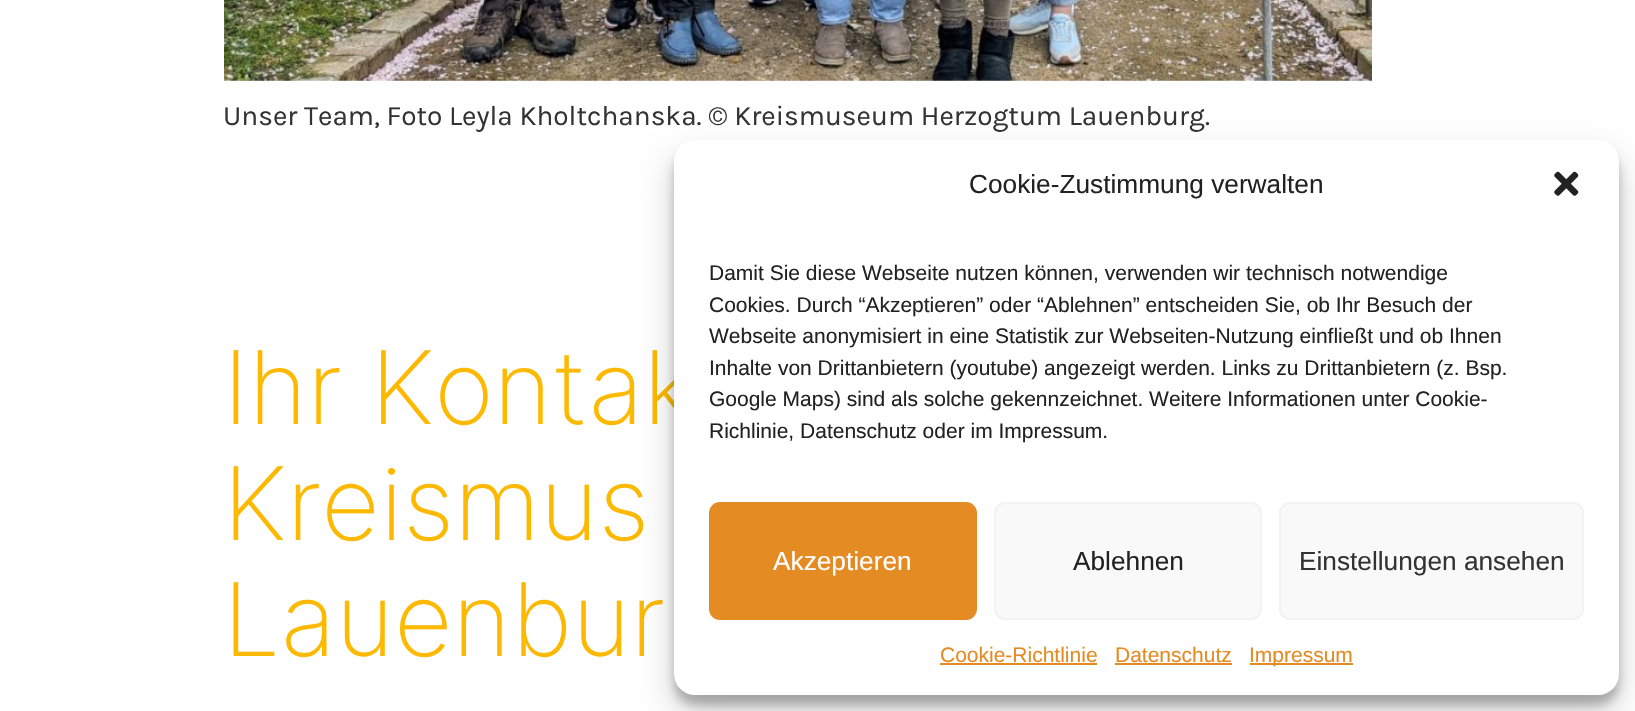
void draw(SkCanvas* canvas) {
    SkPaint paint;
    paint.setAntiAlias(true);
    auto face = [&](const char* family, int weight, float size, bool italic = false) {
        SkFontStyle style(weight, SkFontStyle::kNormal_Width,
            italic ? SkFontStyle::kItalic_Slant : SkFontStyle::kUpright_Slant);
        SkFont result(fontMgr->matchFamilyStyle(family, style), size);
        result.setSubpixel(true);
        return result;
    };
    auto write = [&](const char* s, float x, float y, const SkFont& font, SkColor color) {
        SkPaint ink(SkColor4f::FromColor(color));
        ink.setAntiAlias(true);
        canvas->drawString(s, x, y, font, ink);
    };
    auto block = [&](float x, float y, float w, float h, SkColor color) {
        SkPaint ink(SkColor4f::FromColor(color));
        ink.setAntiAlias(true);
        canvas->drawRect(SkRect::MakeXYWH(x, y, w, h), ink);
    };
    auto card = [&](float x, float y, float w, float h, float radius, SkColor color) {
        SkPaint ink(SkColor4f::FromColor(color));
        ink.setAntiAlias(true);
        canvas->drawRoundRect(SkRect::MakeXYWH(x, y, w, h), radius, radius, ink);
    };
    auto paste = [&](const char* path, float x, float y, float w, float h) {
        auto image = SkImages::DeferredFromEncodedData(SkData::MakeFromFileName(path));
        canvas->drawImageRect(image, SkRect::MakeXYWH(x, y, w, h), SkSamplingOptions());
    };
    canvas->clear(SK_ColorWHITE);
    paste("pic1.png", 224, 0, 1148, 81);
    auto kFont1 = face("Karla", 400, 28);
    write("Unser Team, Foto Leyla Kholtchanska. © Kreismuseum Herzogtum Lauenburg.", 223, 125, kFont1, SkColorSetRGB(51, 51, 51));
    auto kFont2 = face("Inter", 200, 101.5f);
    write("Ihr Kontak", 223, 424, kFont2, SkColorSetRGB(252, 185, 0));
    write("Kreismus", 223, 540, kFont2, SkColorSetRGB(252, 185, 0));
    write("Lauenbur", 223, 656, kFont2, SkColorSetRGB(252, 185, 0));
    paint.setColor(SkColorSetARGB(59, 0, 0, 0));
    paint.setMaskFilter(SkMaskFilter::MakeBlur(kNormal_SkBlurStyle, 5));
    canvas->drawRoundRect(SkRect::MakeXYWH(674, 151, 945, 554), 21, 21, paint);
    paint.setMaskFilter(nullptr);
    paint.setColor(SkColorSetARGB(48, 0, 0, 0));
    paint.setMaskFilter(SkMaskFilter::MakeBlur(kNormal_SkBlurStyle, 17.5f));
    canvas->drawRoundRect(SkRect::MakeXYWH(674, 158, 945, 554), 21, 21, paint);
    paint.setMaskFilter(nullptr);
    card(674, 140, 945, 555, 21, SK_ColorWHITE);
    auto kFont3 = face("Liberation Sans", 400, 26.25f);
    write("Cookie-Zustimmung verwalten", 969, 193, kFont3, SkColorSetRGB(34, 34, 34));
    paste("pic2.png", 1554, 171, 25, 25);
    auto kFont4 = face("Liberation Sans", 400, 21);
    write("Damit Sie diese Webseite nutzen können, verwenden wir technisch notwendige", 709, 280, kFont4, SkColorSetRGB(34, 34, 34));
    write("Cookies. Durch “Akzeptieren” oder “Ablehnen” entscheiden Sie, ob Ihr Besuch der", 709, 312, kFont4, SkColorSetRGB(34, 34, 34));
    write("Webseite anonymisiert in eine Statistik zur Webseiten-Nutzung einfließt und ob Ihnen", 709, 343, kFont4, SkColorSetRGB(34, 34, 34));
    write("Inhalte von Drittanbietern (youtube) angezeigt werden. Links zu Drittanbietern (z. Bsp.", 709, 375, kFont4, SkColorSetRGB(34, 34, 34));
    write("Google Maps) sind als solche gekennzeichnet. Weitere Informationen unter Cookie-", 709, 406, kFont4, SkColorSetRGB(34, 34, 34));
    write("Richlinie, Datenschutz oder im Impressum.", 709, 438, kFont4, SkColorSetRGB(34, 34, 34));
    paint.setColor(SkColorSetRGB(229, 139, 36));
    canvas->drawRoundRect(SkRect::MakeXYWH(710, 503, 266, 116), 10, 10, paint);
    paint.setStyle(SkPaint::kStroke_Style);
    paint.setStrokeWidth(2);
    canvas->drawRoundRect(SkRect::MakeXYWH(710, 503, 266, 116), 10, 10, paint);
    write("Akzeptieren", 773, 570, kFont3, SK_ColorWHITE);
    paint.setStyle(SkPaint::kFill_Style);
    paint.setColor(SkColorSetRGB(249, 249, 249));
    canvas->drawRoundRect(SkRect::MakeXYWH(995, 503, 266, 116), 10, 10, paint);
    paint.setStyle(SkPaint::kStroke_Style);
    paint.setColor(SkColorSetRGB(242, 242, 242));
    canvas->drawRoundRect(SkRect::MakeXYWH(995, 503, 266, 116), 10, 10, paint);
    write("Ablehnen", 1073, 570, kFont3, SkColorSetRGB(34, 34, 34));
    paint.setStyle(SkPaint::kFill_Style);
    paint.setColor(SkColorSetRGB(249, 249, 249));
    canvas->drawRoundRect(SkRect::MakeXYWH(1280, 503, 303, 116), 10, 10, paint);
    paint.setStyle(SkPaint::kStroke_Style);
    paint.setColor(SkColorSetRGB(242, 242, 242));
    canvas->drawRoundRect(SkRect::MakeXYWH(1280, 503, 303, 116), 10, 10, paint);
    write("Einstellungen ansehen", 1299, 570, kFont3, SkColorSetRGB(51, 51, 51));
    write("Cookie-Richtlinie", 940, 662, kFont4, SkColorSetRGB(229, 139, 36));
    block(940, 663, 157, 2, SkColorSetRGB(229, 139, 36));
    write("Datenschutz", 1115, 662, kFont4, SkColorSetRGB(229, 139, 36));
    block(1115, 663, 117, 2, SkColorSetRGB(229, 139, 36));
    block(1250, 663, 103, 2, SkColorSetRGB(229, 139, 36));
    write("Impressum", 1249, 662, kFont4, SkColorSetRGB(229, 139, 36));
}
